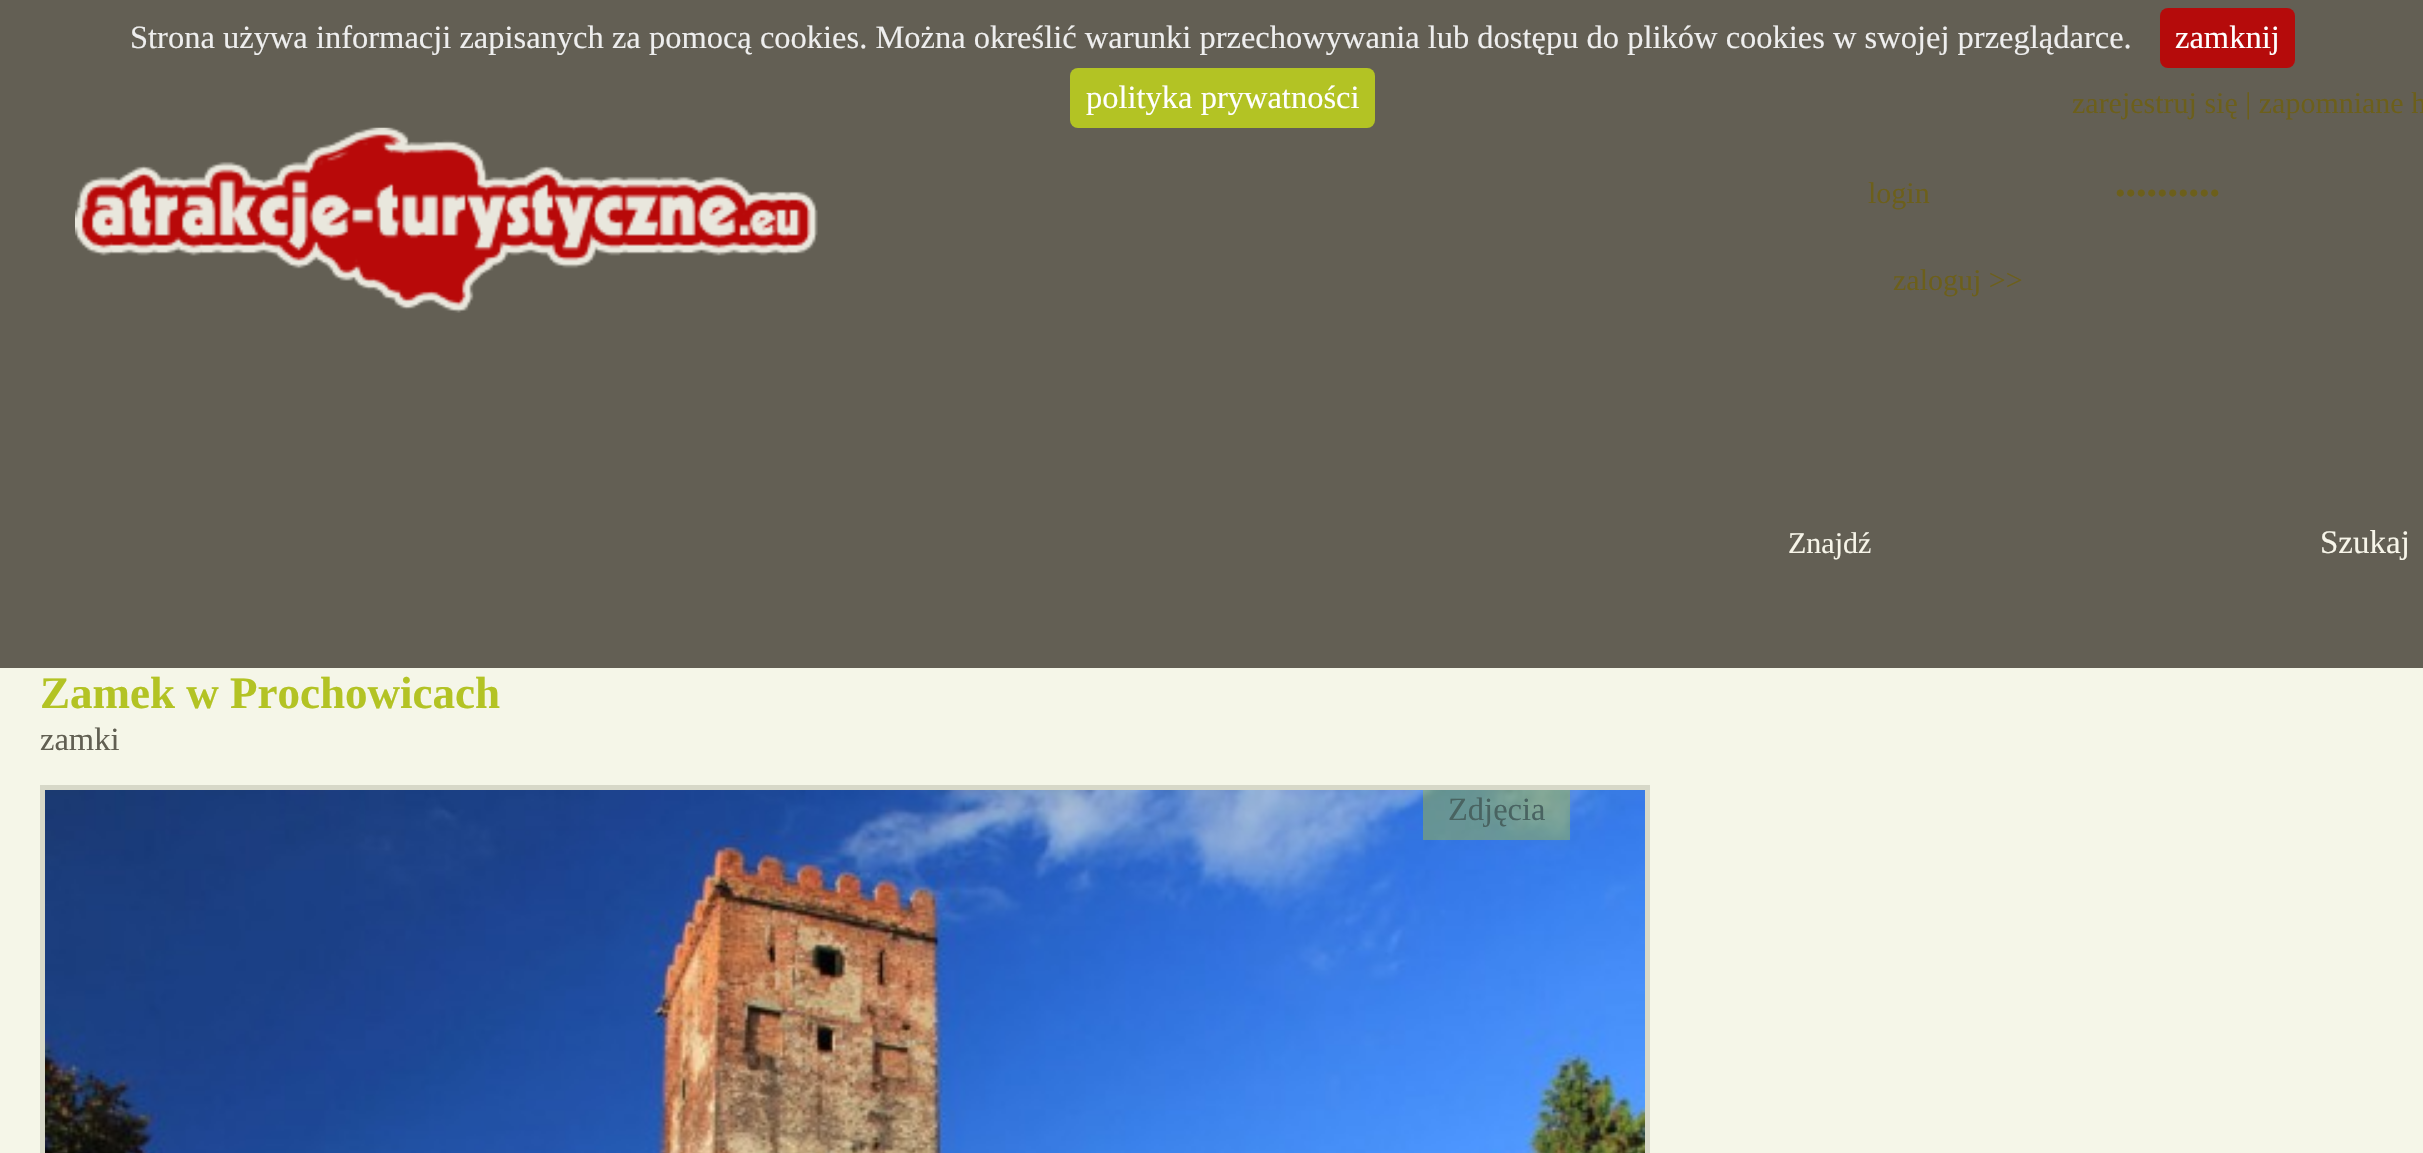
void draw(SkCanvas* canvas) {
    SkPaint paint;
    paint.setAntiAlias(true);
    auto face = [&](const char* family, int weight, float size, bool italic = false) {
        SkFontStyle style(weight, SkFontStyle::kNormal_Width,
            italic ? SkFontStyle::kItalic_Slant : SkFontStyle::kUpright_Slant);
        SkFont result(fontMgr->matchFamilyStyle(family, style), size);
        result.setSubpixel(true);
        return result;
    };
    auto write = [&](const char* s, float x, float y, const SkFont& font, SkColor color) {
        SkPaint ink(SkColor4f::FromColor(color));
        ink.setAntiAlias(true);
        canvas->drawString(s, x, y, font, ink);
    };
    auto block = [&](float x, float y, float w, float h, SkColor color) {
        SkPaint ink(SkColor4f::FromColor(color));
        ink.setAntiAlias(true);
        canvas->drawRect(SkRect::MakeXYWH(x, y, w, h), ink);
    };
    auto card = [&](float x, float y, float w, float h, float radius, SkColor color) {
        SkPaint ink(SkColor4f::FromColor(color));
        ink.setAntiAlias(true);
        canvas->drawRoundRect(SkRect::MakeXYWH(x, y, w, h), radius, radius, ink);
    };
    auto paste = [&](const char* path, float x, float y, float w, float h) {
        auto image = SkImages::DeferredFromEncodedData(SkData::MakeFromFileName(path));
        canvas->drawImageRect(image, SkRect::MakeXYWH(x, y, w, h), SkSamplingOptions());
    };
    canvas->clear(SkColorSetRGB(99, 95, 84));
    auto kFont1 = face("Liberation Serif", 400, 32.5f);
    write("Strona używa informacji zapisanych za pomocą cookies. Można określić warunki przechowywania lub dostępu do plików cookies w swojej przeglądarce.", 130, 48, kFont1, SkColorSetRGB(238, 238, 238));
    card(2160, 8, 135, 60, 8, SkColorSetRGB(181, 11, 11));
    write("zamknij", 2175, 48, kFont1, SK_ColorWHITE);
    card(1070, 68, 305, 60, 8, SkColorSetRGB(179, 195, 36));
    write("polityka prywatności", 1086, 108, kFont1, SK_ColorWHITE);
    auto kFont2 = face("Liberation Serif", 400, 30);
    write("zarejestruj się | zapomniane h", 2072, 113, kFont2, SkColorSetRGB(108, 95, 27));
    paste("pic1.png", 75, 127, 743, 186);
    write("login", 1868, 203, kFont2, SkColorSetRGB(108, 95, 27));
    write("••••••••••", 2115, 203, kFont2, SkColorSetRGB(108, 95, 27));
    write("zaloguj >>", 1893, 290, kFont2, SkColorSetRGB(108, 95, 27));
    write("Znajdź", 1788, 553, kFont2, SkColorSetRGB(247, 245, 233));
    auto kFont3 = face("Liberation Serif", 400, 33);
    write("Szukaj", 2320, 553, kFont3, SkColorSetRGB(247, 245, 233));
    block(0, 668, 2423, 485, SkColorSetRGB(245, 246, 232));
    auto kFont4 = face("Liberation Serif", 700, 45);
    write("Zamek w Prochowicach", 40, 708, kFont4, SkColorSetRGB(179, 195, 36));
    write("zamki", 40, 750, kFont1, SkColorSetRGB(97, 95, 82));
    paint.setStyle(SkPaint::kStroke_Style);
    paint.setStrokeWidth(5);
    paint.setColor(SkColorSetRGB(215, 216, 200));
    canvas->drawRect(SkRect::MakeXYWH(42.5f, 787.5f, 1605, 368), paint);
    paste("pic2.png", 45, 790, 1600, 363);
    block(1423, 790, 147, 50, SkColorSetARGB(102, 179, 195, 36));
    write("Zdjęcia", 1448, 820, kFont1, SkColorSetRGB(73, 99, 97));
}
